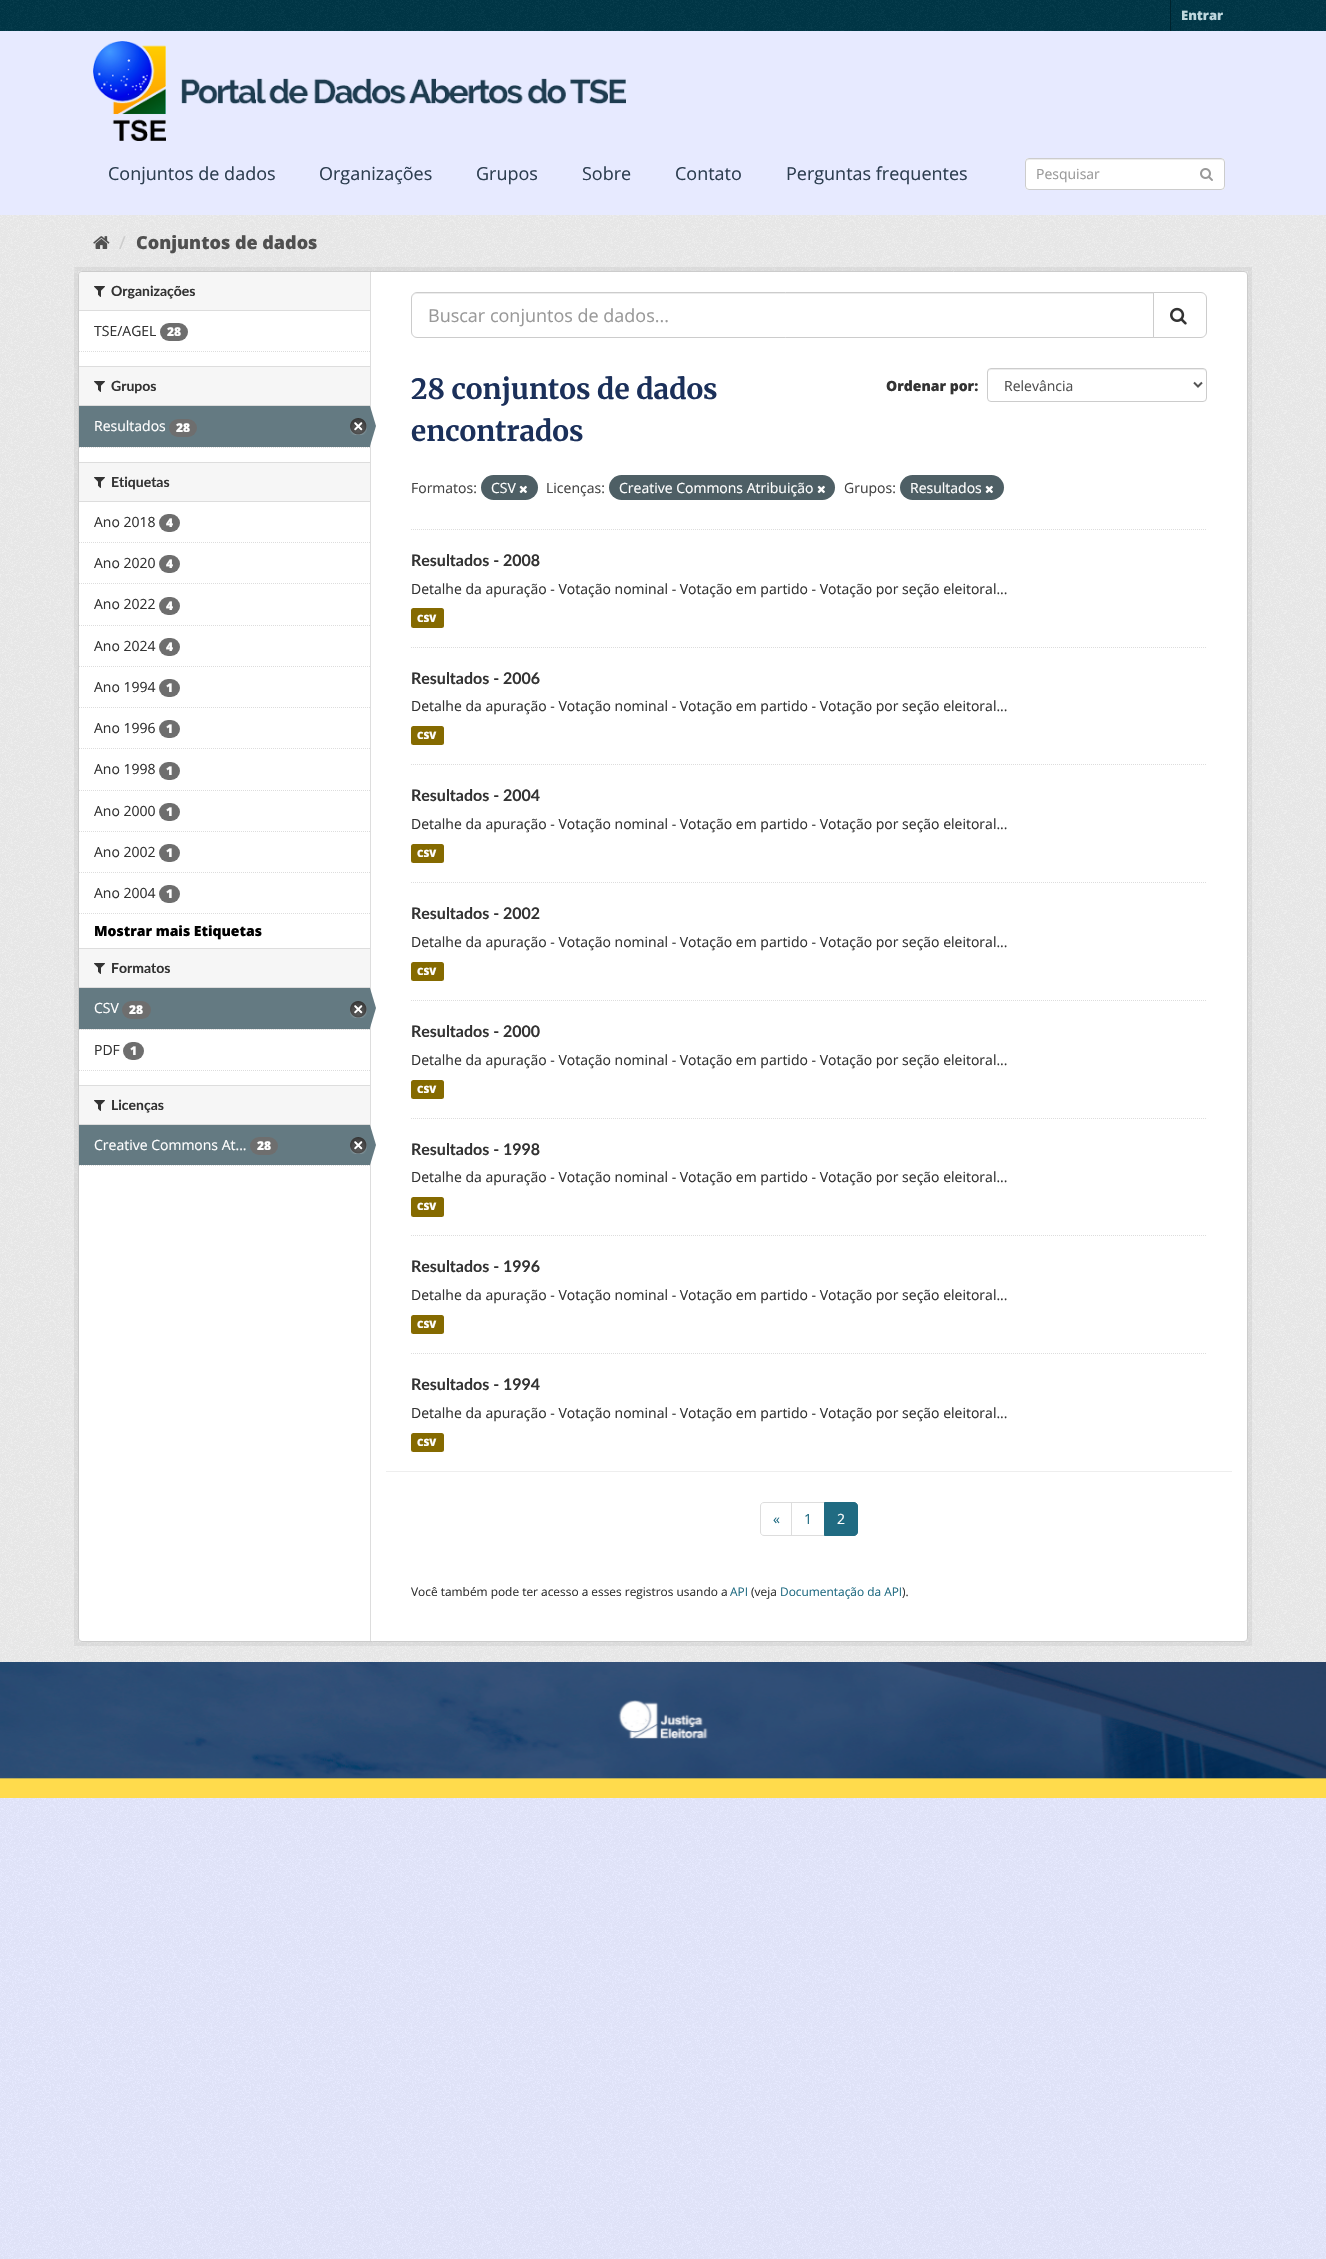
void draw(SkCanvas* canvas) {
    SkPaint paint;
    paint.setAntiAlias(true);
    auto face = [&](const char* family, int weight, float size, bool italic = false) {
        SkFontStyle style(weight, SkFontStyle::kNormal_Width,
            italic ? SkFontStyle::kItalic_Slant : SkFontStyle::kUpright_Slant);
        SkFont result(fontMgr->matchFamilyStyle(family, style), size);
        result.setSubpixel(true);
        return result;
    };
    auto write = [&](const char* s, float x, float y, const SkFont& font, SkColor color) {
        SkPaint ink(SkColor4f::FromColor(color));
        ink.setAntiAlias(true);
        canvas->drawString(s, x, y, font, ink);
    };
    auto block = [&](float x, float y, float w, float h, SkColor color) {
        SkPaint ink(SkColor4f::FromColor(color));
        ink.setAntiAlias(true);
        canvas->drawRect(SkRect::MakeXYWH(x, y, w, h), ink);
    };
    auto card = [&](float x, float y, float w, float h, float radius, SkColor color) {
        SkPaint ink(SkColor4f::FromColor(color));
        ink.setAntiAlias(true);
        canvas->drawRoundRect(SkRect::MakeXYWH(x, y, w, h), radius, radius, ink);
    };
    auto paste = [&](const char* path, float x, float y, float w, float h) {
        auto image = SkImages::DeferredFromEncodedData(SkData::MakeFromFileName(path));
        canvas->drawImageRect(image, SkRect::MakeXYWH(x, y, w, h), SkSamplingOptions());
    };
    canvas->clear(SkColorSetRGB(231, 234, 255));
    paste("pic1.png", 0, 1798, 1326, 461);
    block(0, 0, 1326, 31, SkColorSetRGB(0, 54, 71));
    paste("pic2.png", 0, 0, 1326, 31);
    block(1170, 0, 1, 31, SkColorSetRGB(0, 35, 46));
    auto kFont1 = face("Open Sans", 800, 13);
    write("Entrar", 1181, 20, kFont1, SkColorSetRGB(191, 215, 222));
    paste("pic3.png", 93, 41, 533, 100);
    auto kFont2 = face("Open Sans", 400, 18);
    write("Conjuntos de dados", 108, 180, kFont2, SkColorSetRGB(45, 62, 80));
    write("Organizações", 319, 180, kFont2, SkColorSetRGB(45, 62, 80));
    write("Grupos", 476, 180, kFont2, SkColorSetRGB(45, 62, 80));
    write("Sobre", 582, 180, kFont2, SkColorSetRGB(45, 62, 80));
    write("Contato", 675, 180, kFont2, SkColorSetRGB(45, 62, 80));
    write("Perguntas frequentes", 786, 180, kFont2, SkColorSetRGB(45, 62, 80));
    card(1025, 158, 200, 32, 4, SK_ColorWHITE);
    paint.setColor(SkColorSetRGB(236, 236, 236));
    canvas->drawPath(SkPathBuilder().moveTo(1029, 160).lineTo(1221, 160).cubicTo(1223, 160, 1224, 161, 1224, 163).cubicTo(1224, 161, 1223, 159, 1221, 159).lineTo(1029, 159).cubicTo(1027, 159, 1026, 161, 1026, 163).cubicTo(1026, 161, 1027, 160, 1029, 160).close().detach(), paint);
    paint.setStyle(SkPaint::kStroke_Style);
    paint.setStrokeWidth(1);
    paint.setColor(SkColorSetRGB(204, 204, 204));
    canvas->drawRoundRect(SkRect::MakeXYWH(1025.5f, 158.5f, 199, 31), 3.5f, 3.5f, paint);
    auto kFont3 = face("Open Sans", 400, 14);
    write("Pesquisar", 1036, 179, kFont3, SkColorSetRGB(153, 153, 153));
    paste("pic4.png", 1200, 168, 13, 13);
    block(0, 215, 1326, 1447, SkColorSetRGB(238, 238, 238));
    paste("pic5.png", 0, 215, 1326, 1447);
    paste("pic6.png", 93, 236, 17, 13);
    write("/", 119, 249, kFont2, SkColorSetRGB(204, 204, 204));
    auto kFont4 = face("Open Sans", 800, 18);
    write("Conjuntos de dados", 136, 249, kFont4, SkColorSetRGB(80, 80, 80));
    paint.setStrokeWidth(4);
    paint.setColor(SkColorSetARGB(13, 0, 0, 0));
    canvas->drawRect(SkRect::MakeXYWH(76, 269, 1174, 1375), paint);
    paint.setStyle(SkPaint::kFill_Style);
    paint.setColor(SK_ColorWHITE);
    canvas->drawRoundRect(SkRect::MakeXYWH(78.5f, 271.5f, 1169, 1370), 3.5f, 3.5f, paint);
    paint.setStyle(SkPaint::kStroke_Style);
    paint.setStrokeWidth(1);
    paint.setColor(SkColorSetRGB(204, 204, 204));
    canvas->drawRoundRect(SkRect::MakeXYWH(78.5f, 271.5f, 1169, 1370), 3.5f, 3.5f, paint);
    paint.setStyle(SkPaint::kFill_Style);
    paint.setColor(SkColorSetRGB(246, 246, 246));
    canvas->drawPath(SkPathBuilder().moveTo(82, 272).lineTo(370, 272).lineTo(370, 311).lineTo(79, 311).lineTo(79, 275).cubicTo(79, 273.5f, 80.5f, 272, 82, 272).close().detach(), paint);
    block(79, 310, 291, 1, SkColorSetRGB(221, 221, 221));
    paste("pic7.png", 94, 286, 11, 11);
    auto kFont5 = face("Lato", 700, 14);
    write("Organizações", 111, 296, kFont5, SkColorSetRGB(51, 51, 51));
    write("TSE/AGEL", 94, 336, kFont3, SkColorSetRGB(51, 51, 51));
    card(160, 323, 28, 18, 9, SkColorSetRGB(110, 110, 110));
    auto kFont6 = face("Open Sans", 800, 12);
    write("28", 167, 336, kFont6, SK_ColorWHITE);
    paint.setStyle(SkPaint::kStroke_Style);
    paint.setColor(SkColorSetRGB(221, 221, 221));
    paint.setPathEffect(SkDashPathEffect::Make({{1, 1}}, 0));
    canvas->drawPath(SkPathBuilder().moveTo(79, 351.5f).lineTo(370, 351.5f).detach(), paint);
    paint.setPathEffect(nullptr);
    block(79, 367, 291, 38, SkColorSetRGB(246, 246, 246));
    block(79, 366, 291, 1, SkColorSetRGB(221, 221, 221));
    block(79, 405, 291, 1, SkColorSetRGB(221, 221, 221));
    paste("pic7.png", 94, 381, 11, 11);
    write("Grupos", 111, 391, kFont5, SkColorSetRGB(51, 51, 51));
    block(79, 406, 291, 41, SkColorSetRGB(100, 122, 130));
    write("Resultados", 94, 431, kFont3, SK_ColorWHITE);
    card(169, 419, 28, 18, 9, SkColorSetRGB(110, 110, 110));
    write("28", 176, 432, kFont6, SK_ColorWHITE);
    paste("pic8.png", 350, 418, 17, 17);
    block(370, 272, 1, 1369, SkColorSetRGB(221, 221, 221));
    paint.setStyle(SkPaint::kFill_Style);
    paint.setColor(SkColorSetRGB(100, 122, 130));
    canvas->drawPath(SkPathBuilder().moveTo(370, 446).lineTo(370, 406).lineTo(376, 426).close().detach(), paint);
    paint.setStyle(SkPaint::kStroke_Style);
    paint.setColor(SkColorSetRGB(221, 221, 221));
    paint.setPathEffect(SkDashPathEffect::Make({{1, 1}}, 0));
    canvas->drawPath(SkPathBuilder().moveTo(79, 447.5f).lineTo(370, 447.5f).detach(), paint);
    paint.setPathEffect(nullptr);
    block(79, 463, 291, 38, SkColorSetRGB(246, 246, 246));
    block(79, 462, 291, 1, SkColorSetRGB(221, 221, 221));
    block(79, 501, 291, 1, SkColorSetRGB(221, 221, 221));
    paste("pic7.png", 94, 477, 11, 11);
    write("Etiquetas", 111, 487, kFont5, SkColorSetRGB(51, 51, 51));
    paint.setPathEffect(SkDashPathEffect::Make({{1, 1}}, 0));
    canvas->drawPath(SkPathBuilder().moveTo(79, 542.5f).lineTo(370, 542.5f).detach(), paint);
    paint.setPathEffect(nullptr);
    write("Ano 2018", 94, 527, kFont3, SkColorSetRGB(51, 51, 51));
    card(159, 514, 21, 18, 9, SkColorSetRGB(110, 110, 110));
    write("4", 166, 527, kFont6, SK_ColorWHITE);
    paint.setPathEffect(SkDashPathEffect::Make({{1, 1}}, 0));
    canvas->drawPath(SkPathBuilder().moveTo(79, 583.5f).lineTo(370, 583.5f).detach(), paint);
    paint.setPathEffect(nullptr);
    write("Ano 2020", 94, 568, kFont3, SkColorSetRGB(51, 51, 51));
    card(159, 555, 21, 18, 9, SkColorSetRGB(110, 110, 110));
    write("4", 166, 568, kFont6, SK_ColorWHITE);
    paint.setPathEffect(SkDashPathEffect::Make({{1, 1}}, 0));
    canvas->drawPath(SkPathBuilder().moveTo(79, 625.5f).lineTo(370, 625.5f).detach(), paint);
    paint.setPathEffect(nullptr);
    write("Ano 2022", 94, 609, kFont3, SkColorSetRGB(51, 51, 51));
    card(159, 597, 21, 18, 9, SkColorSetRGB(110, 110, 110));
    write("4", 166, 610, kFont6, SK_ColorWHITE);
    paint.setPathEffect(SkDashPathEffect::Make({{1, 1}}, 0));
    canvas->drawPath(SkPathBuilder().moveTo(79, 666.5f).lineTo(370, 666.5f).detach(), paint);
    paint.setPathEffect(nullptr);
    write("Ano 2024", 94, 651, kFont3, SkColorSetRGB(51, 51, 51));
    card(159, 638, 21, 18, 9, SkColorSetRGB(110, 110, 110));
    write("4", 166, 651, kFont6, SK_ColorWHITE);
    paint.setPathEffect(SkDashPathEffect::Make({{1, 1}}, 0));
    canvas->drawPath(SkPathBuilder().moveTo(79, 707.5f).lineTo(370, 707.5f).detach(), paint);
    paint.setPathEffect(nullptr);
    write("Ano 1994", 94, 692, kFont3, SkColorSetRGB(51, 51, 51));
    card(159, 679, 21, 18, 9, SkColorSetRGB(110, 110, 110));
    write("1", 166, 692, kFont6, SK_ColorWHITE);
    paint.setPathEffect(SkDashPathEffect::Make({{1, 1}}, 0));
    canvas->drawPath(SkPathBuilder().moveTo(79, 748.5f).lineTo(370, 748.5f).detach(), paint);
    paint.setPathEffect(nullptr);
    write("Ano 1996", 94, 733, kFont3, SkColorSetRGB(51, 51, 51));
    card(159, 720, 21, 18, 9, SkColorSetRGB(110, 110, 110));
    write("1", 166, 733, kFont6, SK_ColorWHITE);
    paint.setPathEffect(SkDashPathEffect::Make({{1, 1}}, 0));
    canvas->drawPath(SkPathBuilder().moveTo(79, 790.5f).lineTo(370, 790.5f).detach(), paint);
    paint.setPathEffect(nullptr);
    write("Ano 1998", 94, 774, kFont3, SkColorSetRGB(51, 51, 51));
    card(159, 762, 21, 18, 9, SkColorSetRGB(110, 110, 110));
    write("1", 166, 775, kFont6, SK_ColorWHITE);
    paint.setPathEffect(SkDashPathEffect::Make({{1, 1}}, 0));
    canvas->drawPath(SkPathBuilder().moveTo(79, 831.5f).lineTo(370, 831.5f).detach(), paint);
    paint.setPathEffect(nullptr);
    write("Ano 2000", 94, 816, kFont3, SkColorSetRGB(51, 51, 51));
    card(159, 803, 21, 18, 9, SkColorSetRGB(110, 110, 110));
    write("1", 166, 816, kFont6, SK_ColorWHITE);
    paint.setPathEffect(SkDashPathEffect::Make({{1, 1}}, 0));
    canvas->drawPath(SkPathBuilder().moveTo(79, 872.5f).lineTo(370, 872.5f).detach(), paint);
    paint.setPathEffect(nullptr);
    write("Ano 2002", 94, 857, kFont3, SkColorSetRGB(51, 51, 51));
    card(159, 844, 21, 18, 9, SkColorSetRGB(110, 110, 110));
    write("1", 166, 857, kFont6, SK_ColorWHITE);
    write("Ano 2004", 94, 898, kFont3, SkColorSetRGB(51, 51, 51));
    card(159, 885, 21, 18, 9, SkColorSetRGB(110, 110, 110));
    write("1", 166, 898, kFont6, SK_ColorWHITE);
    paint.setPathEffect(SkDashPathEffect::Make({{1, 1}}, 0));
    canvas->drawPath(SkPathBuilder().moveTo(79, 913.5f).lineTo(370, 913.5f).detach(), paint);
    paint.setPathEffect(nullptr);
    auto kFont7 = face("Open Sans", 800, 14);
    write("Mostrar mais Etiquetas", 94, 936, kFont7, SK_ColorBLACK);
    block(79, 949, 291, 38, SkColorSetRGB(246, 246, 246));
    block(79, 948, 291, 1, SkColorSetRGB(221, 221, 221));
    block(79, 987, 291, 1, SkColorSetRGB(221, 221, 221));
    paste("pic7.png", 94, 963, 11, 11);
    write("Formatos", 111, 973, kFont5, SkColorSetRGB(51, 51, 51));
    block(80, 1029, 289, 1, SkColorSetRGB(246, 246, 246));
    paint.setPathEffect(SkDashPathEffect::Make({{1, 1}}, 0));
    canvas->drawPath(SkPathBuilder().moveTo(79, 1029.5f).lineTo(370, 1029.5f).detach(), paint);
    paint.setPathEffect(nullptr);
    block(79, 988, 291, 41, SkColorSetRGB(100, 122, 130));
    write("CSV", 94, 1013, kFont3, SK_ColorWHITE);
    card(122, 1001, 29, 18, 9, SkColorSetRGB(110, 110, 110));
    write("28", 129, 1014, kFont6, SK_ColorWHITE);
    paste("pic8.png", 350, 1001, 17, 17);
    paint.setStyle(SkPaint::kFill_Style);
    paint.setColor(SkColorSetRGB(100, 122, 130));
    canvas->drawPath(SkPathBuilder().moveTo(370, 1028).lineTo(370, 988).lineTo(376, 1008).close().detach(), paint);
    write("PDF", 94, 1055, kFont3, SkColorSetRGB(51, 51, 51));
    card(123, 1042, 21, 18, 9, SkColorSetRGB(110, 110, 110));
    write("1", 130, 1055, kFont6, SK_ColorWHITE);
    paint.setStyle(SkPaint::kStroke_Style);
    paint.setColor(SkColorSetRGB(221, 221, 221));
    paint.setPathEffect(SkDashPathEffect::Make({{1, 1}}, 0));
    canvas->drawPath(SkPathBuilder().moveTo(79, 1070.5f).lineTo(370, 1070.5f).detach(), paint);
    paint.setPathEffect(nullptr);
    block(79, 1086, 291, 38, SkColorSetRGB(246, 246, 246));
    block(79, 1085, 291, 1, SkColorSetRGB(221, 221, 221));
    block(79, 1124, 291, 1, SkColorSetRGB(221, 221, 221));
    paste("pic7.png", 94, 1100, 11, 11);
    write("Licenças", 111, 1110, kFont5, SkColorSetRGB(51, 51, 51));
    block(79, 1125, 291, 40, SkColorSetRGB(100, 122, 130));
    write("Creative Commons At...", 94, 1150, kFont3, SK_ColorWHITE);
    card(250, 1137, 28, 18, 9, SkColorSetRGB(110, 110, 110));
    write("28", 257, 1150, kFont6, SK_ColorWHITE);
    paste("pic8.png", 350, 1137, 17, 17);
    paint.setStyle(SkPaint::kFill_Style);
    paint.setColor(SkColorSetRGB(100, 122, 130));
    canvas->drawPath(SkPathBuilder().moveTo(370, 1165).lineTo(370, 1125).lineTo(376, 1145).close().detach(), paint);
    paint.setStyle(SkPaint::kStroke_Style);
    paint.setColor(SkColorSetRGB(221, 221, 221));
    paint.setPathEffect(SkDashPathEffect::Make({{1, 1}}, 0));
    canvas->drawPath(SkPathBuilder().moveTo(79, 1165.5f).lineTo(370, 1165.5f).detach(), paint);
    paint.setPathEffect(nullptr);
    paint.setPathEffect(SkDashPathEffect::Make({{1, 1}}, 0));
    canvas->drawPath(SkPathBuilder().moveTo(411, 529.5f).lineTo(1207, 529.5f).detach(), paint);
    paint.setPathEffect(nullptr);
    paint.setStyle(SkPaint::kFill_Style);
    paint.setColor(SkColorSetRGB(236, 236, 236));
    canvas->drawPath(SkPathBuilder().moveTo(417, 294).lineTo(1153, 294).lineTo(1153, 293).lineTo(417, 293).cubicTo(414, 293, 412, 296, 412, 299).cubicTo(412, 296, 414, 294, 417, 294).close().detach(), paint);
    paint.setStyle(SkPaint::kStroke_Style);
    paint.setColor(SkColorSetRGB(204, 204, 204));
    canvas->drawPath(SkPathBuilder().moveTo(417, 292.5f).lineTo(1153.5f, 292.5f).lineTo(1153.5f, 337.5f).lineTo(417, 337.5f).cubicTo(414, 337.5f, 411.5f, 335, 411.5f, 332).lineTo(411.5f, 298).cubicTo(411.5f, 295, 414, 292.5f, 417, 292.5f).close().detach(), paint);
    write("Buscar conjuntos de dados...", 428, 322, kFont2, SkColorSetRGB(153, 153, 153));
    paint.setStyle(SkPaint::kFill_Style);
    paint.setColor(SK_ColorWHITE);
    canvas->drawPath(SkPathBuilder().moveTo(1153.5f, 292.5f).lineTo(1201, 292.5f).cubicTo(1204, 292.5f, 1206.5f, 295, 1206.5f, 298).lineTo(1206.5f, 332).cubicTo(1206.5f, 335, 1204, 337.5f, 1201, 337.5f).lineTo(1153.5f, 337.5f).close().detach(), paint);
    paint.setStyle(SkPaint::kStroke_Style);
    paint.setColor(SkColorSetRGB(204, 204, 204));
    canvas->drawPath(SkPathBuilder().moveTo(1153.5f, 292.5f).lineTo(1201, 292.5f).cubicTo(1204, 292.5f, 1206.5f, 295, 1206.5f, 298).lineTo(1206.5f, 332).cubicTo(1206.5f, 335, 1204, 337.5f, 1201, 337.5f).lineTo(1153.5f, 337.5f).close().detach(), paint);
    paste("pic9.png", 1170, 307, 17, 18);
    auto kFont8 = face("Merriweather", 700, 28);
    write("28 conjuntos de dados", 411, 399, kFont8, SkColorSetRGB(27, 48, 90));
    write("encontrados", 411, 441, kFont8, SkColorSetRGB(27, 48, 90));
    write("Ordenar por:", 886, 391, kFont7, SkColorSetRGB(51, 51, 51));
    paint.setStyle(SkPaint::kFill_Style);
    paint.setColor(SkColorSetRGB(236, 236, 236));
    canvas->drawPath(SkPathBuilder().moveTo(991, 370).lineTo(1203, 370).cubicTo(1205, 370, 1206, 371, 1206, 373).lineTo(1206, 372).cubicTo(1206, 370, 1205, 369, 1203, 369).lineTo(991, 369).cubicTo(989, 369, 988, 370, 988, 372).lineTo(988, 373).cubicTo(988, 371, 989, 370, 991, 370).close().detach(), paint);
    paint.setStyle(SkPaint::kStroke_Style);
    paint.setColor(SkColorSetRGB(204, 204, 204));
    canvas->drawRoundRect(SkRect::MakeXYWH(987.5f, 368.5f, 219, 33), 3.5f, 3.5f, paint);
    paint.setStrokeWidth(2);
    paint.setColor(SkColorSetRGB(85, 85, 85));
    canvas->drawPath(SkPathBuilder().moveTo(1194, 382.5f).lineTo(1198, 386.5f).lineTo(1202, 382.5f).detach(), paint);
    write("Relevância", 1004, 391, kFont3, SkColorSetRGB(80, 80, 80));
    write("Formatos:", 411, 493, kFont3, SkColorSetRGB(68, 68, 68));
    card(481, 475, 57, 25, 12.5f, SkColorSetRGB(78, 95, 101));
    write("CSV", 491, 493, kFont3, SK_ColorWHITE);
    paste("pic10.png", 519, 485, 8, 9);
    write("Licenças:", 546, 493, kFont3, SkColorSetRGB(68, 68, 68));
    card(609, 475, 226, 25, 12.5f, SkColorSetRGB(78, 95, 101));
    write("Creative Commons Atribuição", 619, 493, kFont3, SK_ColorWHITE);
    paste("pic10.png", 817, 485, 8, 9);
    write("Grupos:", 844, 493, kFont3, SkColorSetRGB(68, 68, 68));
    card(900, 475, 104, 25, 12.5f, SkColorSetRGB(78, 95, 101));
    write("Resultados", 910, 493, kFont3, SK_ColorWHITE);
    paste("pic10.png", 985, 485, 8, 9);
    paint.setStrokeWidth(1);
    paint.setColor(SkColorSetRGB(221, 221, 221));
    paint.setPathEffect(SkDashPathEffect::Make({{1, 1}}, 0));
    canvas->drawPath(SkPathBuilder().moveTo(411, 647.5f).lineTo(1207, 647.5f).detach(), paint);
    paint.setPathEffect(nullptr);
    auto kFont9 = face("Lato", 700, 16);
    write("Resultados - 2008", 411, 566, kFont9, SkColorSetRGB(51, 51, 51));
    write("Detalhe da apuração - Votação nominal - Votação em partido - Votação por seção eleitoral...", 411, 594, kFont3, SkColorSetRGB(51, 51, 51));
    card(411, 608, 33, 20, 2.5f, SkColorSetRGB(133, 106, 0));
    auto kFont10 = face("Open Sans", 800, 10);
    write("CSV", 417, 622, kFont10, SK_ColorWHITE);
    paint.setPathEffect(SkDashPathEffect::Make({{1, 1}}, 0));
    canvas->drawPath(SkPathBuilder().moveTo(411, 764.5f).lineTo(1207, 764.5f).detach(), paint);
    paint.setPathEffect(nullptr);
    write("Resultados - 2006", 411, 684, kFont9, SkColorSetRGB(51, 51, 51));
    write("Detalhe da apuração - Votação nominal - Votação em partido - Votação por seção eleitoral...", 411, 711, kFont3, SkColorSetRGB(51, 51, 51));
    card(411, 726, 33, 19, 2.5f, SkColorSetRGB(133, 106, 0));
    write("CSV", 417, 739, kFont10, SK_ColorWHITE);
    paint.setPathEffect(SkDashPathEffect::Make({{1, 1}}, 0));
    canvas->drawPath(SkPathBuilder().moveTo(411, 882.5f).lineTo(1207, 882.5f).detach(), paint);
    paint.setPathEffect(nullptr);
    write("Resultados - 2004", 411, 801, kFont9, SkColorSetRGB(51, 51, 51));
    write("Detalhe da apuração - Votação nominal - Votação em partido - Votação por seção eleitoral...", 411, 829, kFont3, SkColorSetRGB(51, 51, 51));
    card(411, 844, 33, 19, 2.5f, SkColorSetRGB(133, 106, 0));
    write("CSV", 417, 857, kFont10, SK_ColorWHITE);
    paint.setPathEffect(SkDashPathEffect::Make({{1, 1}}, 0));
    canvas->drawPath(SkPathBuilder().moveTo(411, 1000.5f).lineTo(1207, 1000.5f).detach(), paint);
    paint.setPathEffect(nullptr);
    write("Resultados - 2002", 411, 919, kFont9, SkColorSetRGB(51, 51, 51));
    write("Detalhe da apuração - Votação nominal - Votação em partido - Votação por seção eleitoral...", 411, 947, kFont3, SkColorSetRGB(51, 51, 51));
    card(411, 962, 33, 19, 2.5f, SkColorSetRGB(133, 106, 0));
    write("CSV", 417, 975, kFont10, SK_ColorWHITE);
    paint.setPathEffect(SkDashPathEffect::Make({{1, 1}}, 0));
    canvas->drawPath(SkPathBuilder().moveTo(411, 1118.5f).lineTo(1207, 1118.5f).detach(), paint);
    paint.setPathEffect(nullptr);
    write("Resultados - 2000", 411, 1037, kFont9, SkColorSetRGB(51, 51, 51));
    write("Detalhe da apuração - Votação nominal - Votação em partido - Votação por seção eleitoral...", 411, 1065, kFont3, SkColorSetRGB(51, 51, 51));
    card(411, 1080, 33, 19, 2.5f, SkColorSetRGB(133, 106, 0));
    write("CSV", 417, 1093, kFont10, SK_ColorWHITE);
    paint.setPathEffect(SkDashPathEffect::Make({{1, 1}}, 0));
    canvas->drawPath(SkPathBuilder().moveTo(411, 1235.5f).lineTo(1207, 1235.5f).detach(), paint);
    paint.setPathEffect(nullptr);
    write("Resultados - 1998", 411, 1155, kFont9, SkColorSetRGB(51, 51, 51));
    write("Detalhe da apuração - Votação nominal - Votação em partido - Votação por seção eleitoral...", 411, 1182, kFont3, SkColorSetRGB(51, 51, 51));
    card(411, 1197, 33, 20, 2.5f, SkColorSetRGB(133, 106, 0));
    write("CSV", 417, 1210, kFont10, SK_ColorWHITE);
    paint.setPathEffect(SkDashPathEffect::Make({{1, 1}}, 0));
    canvas->drawPath(SkPathBuilder().moveTo(411, 1353.5f).lineTo(1207, 1353.5f).detach(), paint);
    paint.setPathEffect(nullptr);
    write("Resultados - 1996", 411, 1272, kFont9, SkColorSetRGB(51, 51, 51));
    write("Detalhe da apuração - Votação nominal - Votação em partido - Votação por seção eleitoral...", 411, 1300, kFont3, SkColorSetRGB(51, 51, 51));
    card(411, 1315, 33, 19, 2.5f, SkColorSetRGB(133, 106, 0));
    write("CSV", 417, 1328, kFont10, SK_ColorWHITE);
    write("Resultados - 1994", 411, 1390, kFont9, SkColorSetRGB(51, 51, 51));
    write("Detalhe da apuração - Votação nominal - Votação em partido - Votação por seção eleitoral...", 411, 1418, kFont3, SkColorSetRGB(51, 51, 51));
    card(411, 1433, 33, 19, 2.5f, SkColorSetRGB(133, 106, 0));
    write("CSV", 417, 1446, kFont10, SK_ColorWHITE);
    block(386, 1471, 846, 1, SkColorSetRGB(238, 238, 238));
    canvas->drawPath(SkPathBuilder().moveTo(764, 1502.5f).lineTo(791.5f, 1502.5f).lineTo(791.5f, 1535.5f).lineTo(764, 1535.5f).cubicTo(762, 1535.5f, 760.5f, 1534, 760.5f, 1532).lineTo(760.5f, 1506).cubicTo(760.5f, 1504, 762, 1502.5f, 764, 1502.5f).close().detach(), paint);
    write("«", 773, 1524, kFont3, SkColorSetRGB(32, 107, 130));
    canvas->drawRect(SkRect::MakeXYWH(791.5f, 1502.5f, 33, 33), paint);
    write("1", 804, 1524, kFont3, SkColorSetRGB(32, 107, 130));
    paint.setStyle(SkPaint::kFill_Style);
    paint.setColor(SkColorSetRGB(32, 107, 130));
    canvas->drawPath(SkPathBuilder().moveTo(824.5f, 1502.5f).lineTo(854, 1502.5f).cubicTo(856, 1502.5f, 857.5f, 1504, 857.5f, 1506).lineTo(857.5f, 1532).cubicTo(857.5f, 1534, 856, 1535.5f, 854, 1535.5f).lineTo(824.5f, 1535.5f).close().detach(), paint);
    paint.setStyle(SkPaint::kStroke_Style);
    canvas->drawPath(SkPathBuilder().moveTo(824.5f, 1502.5f).lineTo(854, 1502.5f).cubicTo(856, 1502.5f, 857.5f, 1504, 857.5f, 1506).lineTo(857.5f, 1532).cubicTo(857.5f, 1534, 856, 1535.5f, 854, 1535.5f).lineTo(824.5f, 1535.5f).close().detach(), paint);
    write("2", 837, 1524, kFont3, SK_ColorWHITE);
    auto kFont11 = face("Open Sans", 400, 11.9f);
    write("Você também pode ter acesso a esses registros usando a", 411, 1596, kFont11, SkColorSetRGB(51, 51, 51));
    write("API", 730, 1596, kFont11, SkColorSetRGB(32, 107, 130));
    write("(veja", 751, 1596, kFont11, SkColorSetRGB(51, 51, 51));
    write("Documentação da API", 780, 1596, kFont11, SkColorSetRGB(32, 107, 130));
    write(").", 902, 1596, kFont11, SkColorSetRGB(51, 51, 51));
    paste("pic11.png", 0, 1662, 1326, 136);
}
